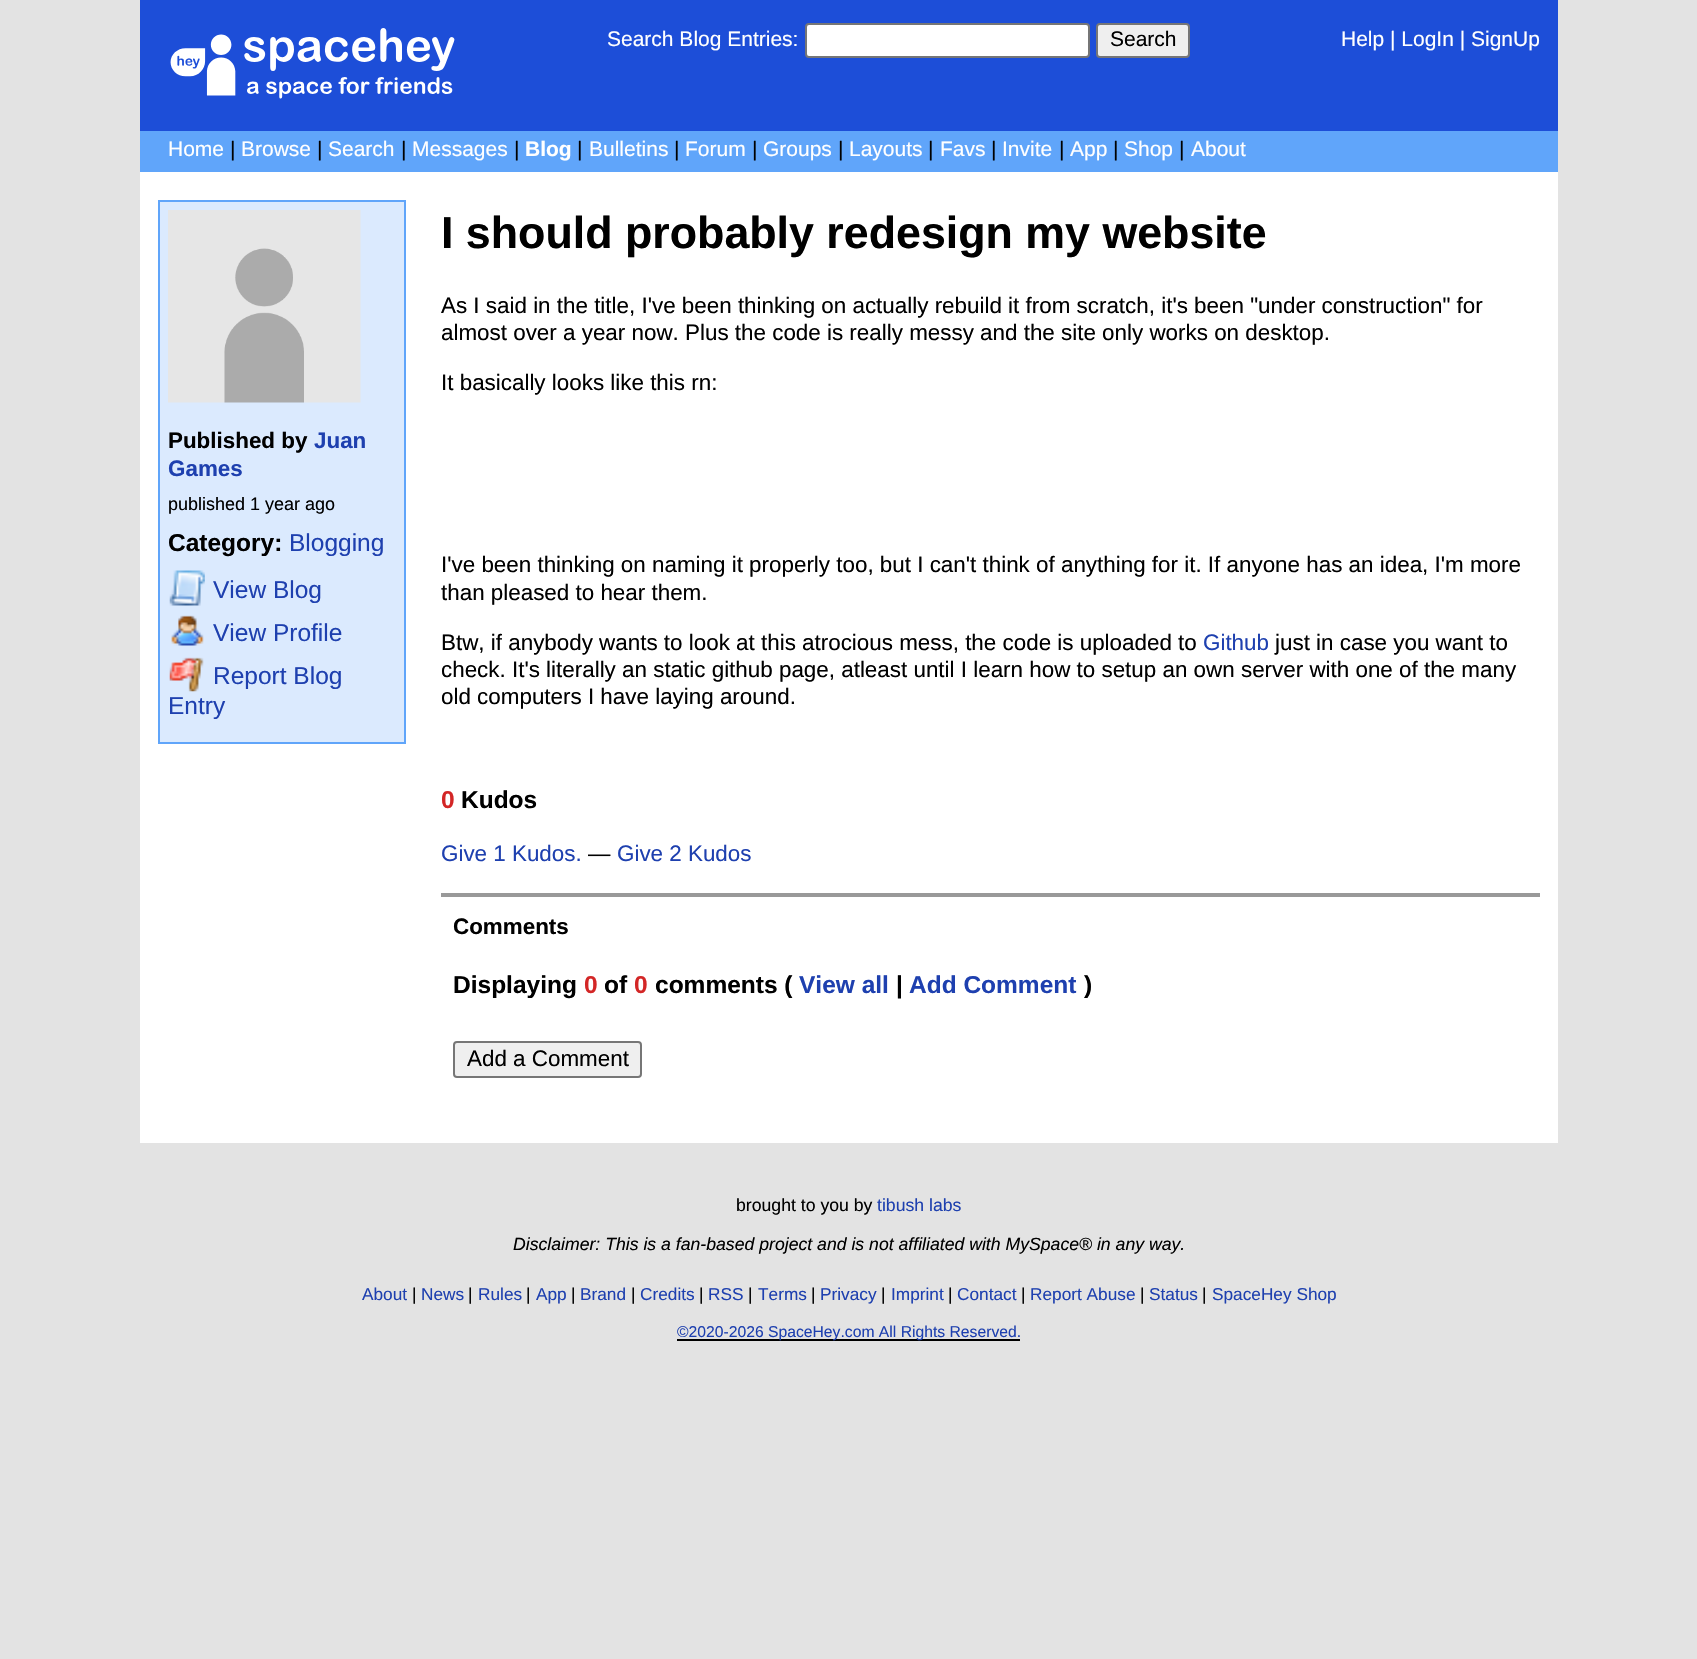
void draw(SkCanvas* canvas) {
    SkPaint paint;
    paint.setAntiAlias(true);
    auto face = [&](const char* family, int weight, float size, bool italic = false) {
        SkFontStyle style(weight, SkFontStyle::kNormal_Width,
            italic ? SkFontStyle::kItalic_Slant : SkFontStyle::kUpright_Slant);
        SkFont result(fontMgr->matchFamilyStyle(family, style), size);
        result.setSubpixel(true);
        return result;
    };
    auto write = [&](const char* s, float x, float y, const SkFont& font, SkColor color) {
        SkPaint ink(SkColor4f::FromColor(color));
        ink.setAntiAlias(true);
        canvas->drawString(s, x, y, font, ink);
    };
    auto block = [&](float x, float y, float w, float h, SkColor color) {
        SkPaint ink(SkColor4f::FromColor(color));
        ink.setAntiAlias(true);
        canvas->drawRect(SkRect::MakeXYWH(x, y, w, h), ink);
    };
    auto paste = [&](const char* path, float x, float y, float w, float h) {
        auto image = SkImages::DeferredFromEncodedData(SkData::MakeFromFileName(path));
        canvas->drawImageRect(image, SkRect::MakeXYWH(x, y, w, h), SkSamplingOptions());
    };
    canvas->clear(SkColorSetRGB(227, 227, 227));
    block(140, 0, 1418, 131, SkColorSetRGB(29, 78, 216));
    paste("pic1.png", 170, 28, 285, 71);
    auto kFont1 = face("Liberation Sans", 400, 21);
    write("Search Blog Entries:", 607, 46, kFont1, SK_ColorWHITE);
    paint.setColor(SK_ColorWHITE);
    canvas->drawRoundRect(SkRect::MakeXYWH(806, 24, 283, 33), 3, 3, paint);
    paint.setStyle(SkPaint::kStroke_Style);
    paint.setStrokeWidth(2);
    paint.setColor(SkColorSetRGB(118, 118, 118));
    canvas->drawRoundRect(SkRect::MakeXYWH(806, 24, 283, 33), 3, 3, paint);
    paint.setStyle(SkPaint::kFill_Style);
    paint.setColor(SkColorSetRGB(239, 239, 239));
    canvas->drawRoundRect(SkRect::MakeXYWH(1097, 24, 92, 33), 3, 3, paint);
    paint.setStyle(SkPaint::kStroke_Style);
    paint.setColor(SkColorSetRGB(118, 118, 118));
    canvas->drawRoundRect(SkRect::MakeXYWH(1097, 24, 92, 33), 3, 3, paint);
    write("Search", 1110, 46, kFont1, SK_ColorBLACK);
    write("Help | LogIn | SignUp", 1341, 46, kFont1, SK_ColorWHITE);
    block(140, 131, 1418, 41, SkColorSetRGB(96, 165, 250));
    write("Home", 168, 156, kFont1, SK_ColorWHITE);
    write("|", 230, 156, kFont1, SK_ColorBLACK);
    write("Browse", 241, 156, kFont1, SK_ColorWHITE);
    write("|", 317, 156, kFont1, SK_ColorBLACK);
    write("Search", 328, 156, kFont1, SK_ColorWHITE);
    write("|", 401, 156, kFont1, SK_ColorBLACK);
    write("Messages", 412, 156, kFont1, SK_ColorWHITE);
    write("|", 514, 156, kFont1, SK_ColorBLACK);
    auto kFont2 = face("Liberation Sans", 700, 21);
    write("Blog", 525, 156, kFont2, SK_ColorWHITE);
    write("|", 577, 156, kFont1, SK_ColorBLACK);
    write("Bulletins", 589, 156, kFont1, SK_ColorWHITE);
    write("|", 674, 156, kFont1, SK_ColorBLACK);
    write("Forum", 685, 156, kFont1, SK_ColorWHITE);
    write("|", 752, 156, kFont1, SK_ColorBLACK);
    write("Groups", 763, 156, kFont1, SK_ColorWHITE);
    write("|", 838, 156, kFont1, SK_ColorBLACK);
    write("Layouts", 849, 156, kFont1, SK_ColorWHITE);
    write("|", 928, 156, kFont1, SK_ColorBLACK);
    write("Favs", 940, 156, kFont1, SK_ColorWHITE);
    write("|", 991, 156, kFont1, SK_ColorBLACK);
    write("Invite", 1002, 156, kFont1, SK_ColorWHITE);
    write("|", 1059, 156, kFont1, SK_ColorBLACK);
    write("App", 1070, 156, kFont1, SK_ColorWHITE);
    write("|", 1113, 156, kFont1, SK_ColorBLACK);
    write("Shop", 1124, 156, kFont1, SK_ColorWHITE);
    write("|", 1179, 156, kFont1, SK_ColorBLACK);
    write("About", 1191, 156, kFont1, SK_ColorWHITE);
    block(140, 172, 1418, 971, SK_ColorWHITE);
    paint.setStyle(SkPaint::kFill_Style);
    paint.setColor(SkColorSetRGB(219, 234, 254));
    canvas->drawRect(SkRect::MakeXYWH(159, 201, 246, 542), paint);
    paint.setStyle(SkPaint::kStroke_Style);
    paint.setColor(SkColorSetRGB(96, 165, 250));
    canvas->drawRect(SkRect::MakeXYWH(159, 201, 246, 542), paint);
    paste("pic2.png", 168, 210, 193, 193);
    auto kFont3 = face("Liberation Sans", 700, 22.4f);
    write("Published by", 168, 448, kFont3, SK_ColorBLACK);
    write("Juan", 314, 448, kFont3, SkColorSetRGB(30, 64, 175));
    write("Games", 168, 476, kFont3, SkColorSetRGB(30, 64, 175));
    auto kFont4 = face("Liberation Sans", 400, 18);
    write("published 1 year ago", 168, 510, kFont4, SK_ColorBLACK);
    auto kFont5 = face("Liberation Sans", 700, 24.5f);
    write("Category:", 168, 551, kFont5, SK_ColorBLACK);
    auto kFont6 = face("Liberation Sans", 400, 24.5f);
    write("Blogging", 289, 551, kFont6, SkColorSetRGB(30, 64, 175));
    paste("pic3.png", 169, 570, 36, 36);
    write("View Blog", 213, 598, kFont6, SkColorSetRGB(30, 64, 175));
    paste("pic4.png", 171, 615, 33, 31);
    write("View Profile", 213, 641, kFont6, SkColorSetRGB(30, 64, 175));
    paste("pic5.png", 169, 657, 35, 35);
    write("Report Blog", 213, 684, kFont6, SkColorSetRGB(30, 64, 175));
    write("Entry", 168, 714, kFont6, SkColorSetRGB(30, 64, 175));
    auto kFont7 = face("Liberation Sans", 700, 44.75f);
    write("I should probably redesign my website", 441, 248, kFont7, SK_ColorBLACK);
    auto kFont8 = face("Liberation Sans", 400, 22.4f);
    write("As I said in the title, I've been thinking on actually rebuild it from scratch, it's been \"under construction\" for", 441, 313, kFont8, SK_ColorBLACK);
    write("almost over a year now. Plus the code is really messy and the site only works on desktop.", 441, 340, kFont8, SK_ColorBLACK);
    write("It basically looks like this rn:", 441, 390, kFont8, SK_ColorBLACK);
    write("I've been thinking on naming it properly too, but I can't think of anything for it. If anyone has an idea, I'm more", 441, 572, kFont8, SK_ColorBLACK);
    write("than pleased to hear them.", 441, 600, kFont8, SK_ColorBLACK);
    write("Btw, if anybody wants to look at this atrocious mess, the code is uploaded to", 441, 650, kFont8, SK_ColorBLACK);
    write("Github", 1203, 650, kFont8, SkColorSetRGB(30, 64, 175));
    write("just in case you want to", 1275, 650, kFont8, SK_ColorBLACK);
    write("check. It's literally an static github page, atleast until I learn how to setup an own server with one of the many", 441, 677, kFont8, SK_ColorBLACK);
    write("old computers I have laying around.", 441, 704, kFont8, SK_ColorBLACK);
    write("0", 441, 808, kFont5, SkColorSetRGB(211, 38, 38));
    write("Kudos", 461, 808, kFont5, SK_ColorBLACK);
    write("Give 1 Kudos.", 441, 861, kFont8, SkColorSetRGB(30, 64, 175));
    write("—", 588, 861, kFont8, SK_ColorBLACK);
    write("Give 2 Kudos", 617, 861, kFont8, SkColorSetRGB(30, 64, 175));
    block(441, 893, 1099, 4, SkColorSetRGB(153, 153, 153));
    write("Comments", 453, 934, kFont3, SK_ColorBLACK);
    write("Displaying", 453, 993, kFont5, SK_ColorBLACK);
    write("0", 584, 993, kFont5, SkColorSetRGB(211, 38, 38));
    write("of", 604, 993, kFont5, SK_ColorBLACK);
    write("0", 634, 993, kFont5, SkColorSetRGB(211, 38, 38));
    write("comments (", 655, 993, kFont5, SK_ColorBLACK);
    write("View all", 799, 993, kFont5, SkColorSetRGB(30, 64, 175));
    write("|", 896, 993, kFont5, SK_ColorBLACK);
    write("Add Comment", 909, 993, kFont5, SkColorSetRGB(30, 64, 175));
    write(")", 1084, 993, kFont5, SK_ColorBLACK);
    paint.setStyle(SkPaint::kFill_Style);
    paint.setColor(SkColorSetRGB(239, 239, 239));
    canvas->drawRoundRect(SkRect::MakeXYWH(454, 1042, 187, 35), 3, 3, paint);
    paint.setStyle(SkPaint::kStroke_Style);
    paint.setColor(SkColorSetRGB(118, 118, 118));
    canvas->drawRoundRect(SkRect::MakeXYWH(454, 1042, 187, 35), 3, 3, paint);
    write("Add a Comment", 467, 1066, kFont8, SK_ColorBLACK);
    auto kFont9 = face("Liberation Sans", 400, 17.65f);
    write("brought to you by", 736, 1211, kFont9, SK_ColorBLACK);
    write("tibush labs", 877, 1211, kFont9, SkColorSetRGB(30, 64, 175));
    auto kFont10 = face("Liberation Sans", 400, 17.65f, true);
    write("Disclaimer: This is a fan-based project and is not affiliated with MySpace® in any way.", 513, 1250, kFont10, SK_ColorBLACK);
    auto kFont11 = face("Liberation Sans", 400, 17.25f);
    write("About", 362, 1300, kFont11, SkColorSetRGB(30, 64, 175));
    write("|", 412, 1300, kFont11, SK_ColorBLACK);
    write("News", 421, 1300, kFont11, SkColorSetRGB(30, 64, 175));
    write("|", 468, 1300, kFont11, SK_ColorBLACK);
    write("Rules", 478, 1300, kFont11, SkColorSetRGB(30, 64, 175));
    write("|", 526, 1300, kFont11, SK_ColorBLACK);
    write("App", 536, 1300, kFont11, SkColorSetRGB(30, 64, 175));
    write("|", 571, 1300, kFont11, SK_ColorBLACK);
    write("Brand", 580, 1300, kFont11, SkColorSetRGB(30, 64, 175));
    write("|", 631, 1300, kFont11, SK_ColorBLACK);
    write("Credits", 640, 1300, kFont11, SkColorSetRGB(30, 64, 175));
    write("|", 699, 1300, kFont11, SK_ColorBLACK);
    write("RSS", 708, 1300, kFont11, SkColorSetRGB(30, 64, 175));
    write("|", 748, 1300, kFont11, SK_ColorBLACK);
    write("Terms", 758, 1300, kFont11, SkColorSetRGB(30, 64, 175));
    write("|", 811, 1300, kFont11, SK_ColorBLACK);
    write("Privacy", 820, 1300, kFont11, SkColorSetRGB(30, 64, 175));
    write("|", 881, 1300, kFont11, SK_ColorBLACK);
    write("Imprint", 891, 1300, kFont11, SkColorSetRGB(30, 64, 175));
    write("|", 948, 1300, kFont11, SK_ColorBLACK);
    write("Contact", 957, 1300, kFont11, SkColorSetRGB(30, 64, 175));
    write("|", 1021, 1300, kFont11, SK_ColorBLACK);
    write("Report Abuse", 1030, 1300, kFont11, SkColorSetRGB(30, 64, 175));
    write("|", 1140, 1300, kFont11, SK_ColorBLACK);
    write("Status", 1149, 1300, kFont11, SkColorSetRGB(30, 64, 175));
    write("|", 1202, 1300, kFont11, SK_ColorBLACK);
    write("SpaceHey Shop", 1212, 1300, kFont11, SkColorSetRGB(30, 64, 175));
    block(677, 1339, 343, 2, SK_ColorBLACK);
    auto kFont12 = face("Liberation Sans", 400, 15.7f);
    write("©2020-2026 SpaceHey.com All Rights Reserved.", 677, 1337, kFont12, SkColorSetRGB(30, 64, 175));
}
